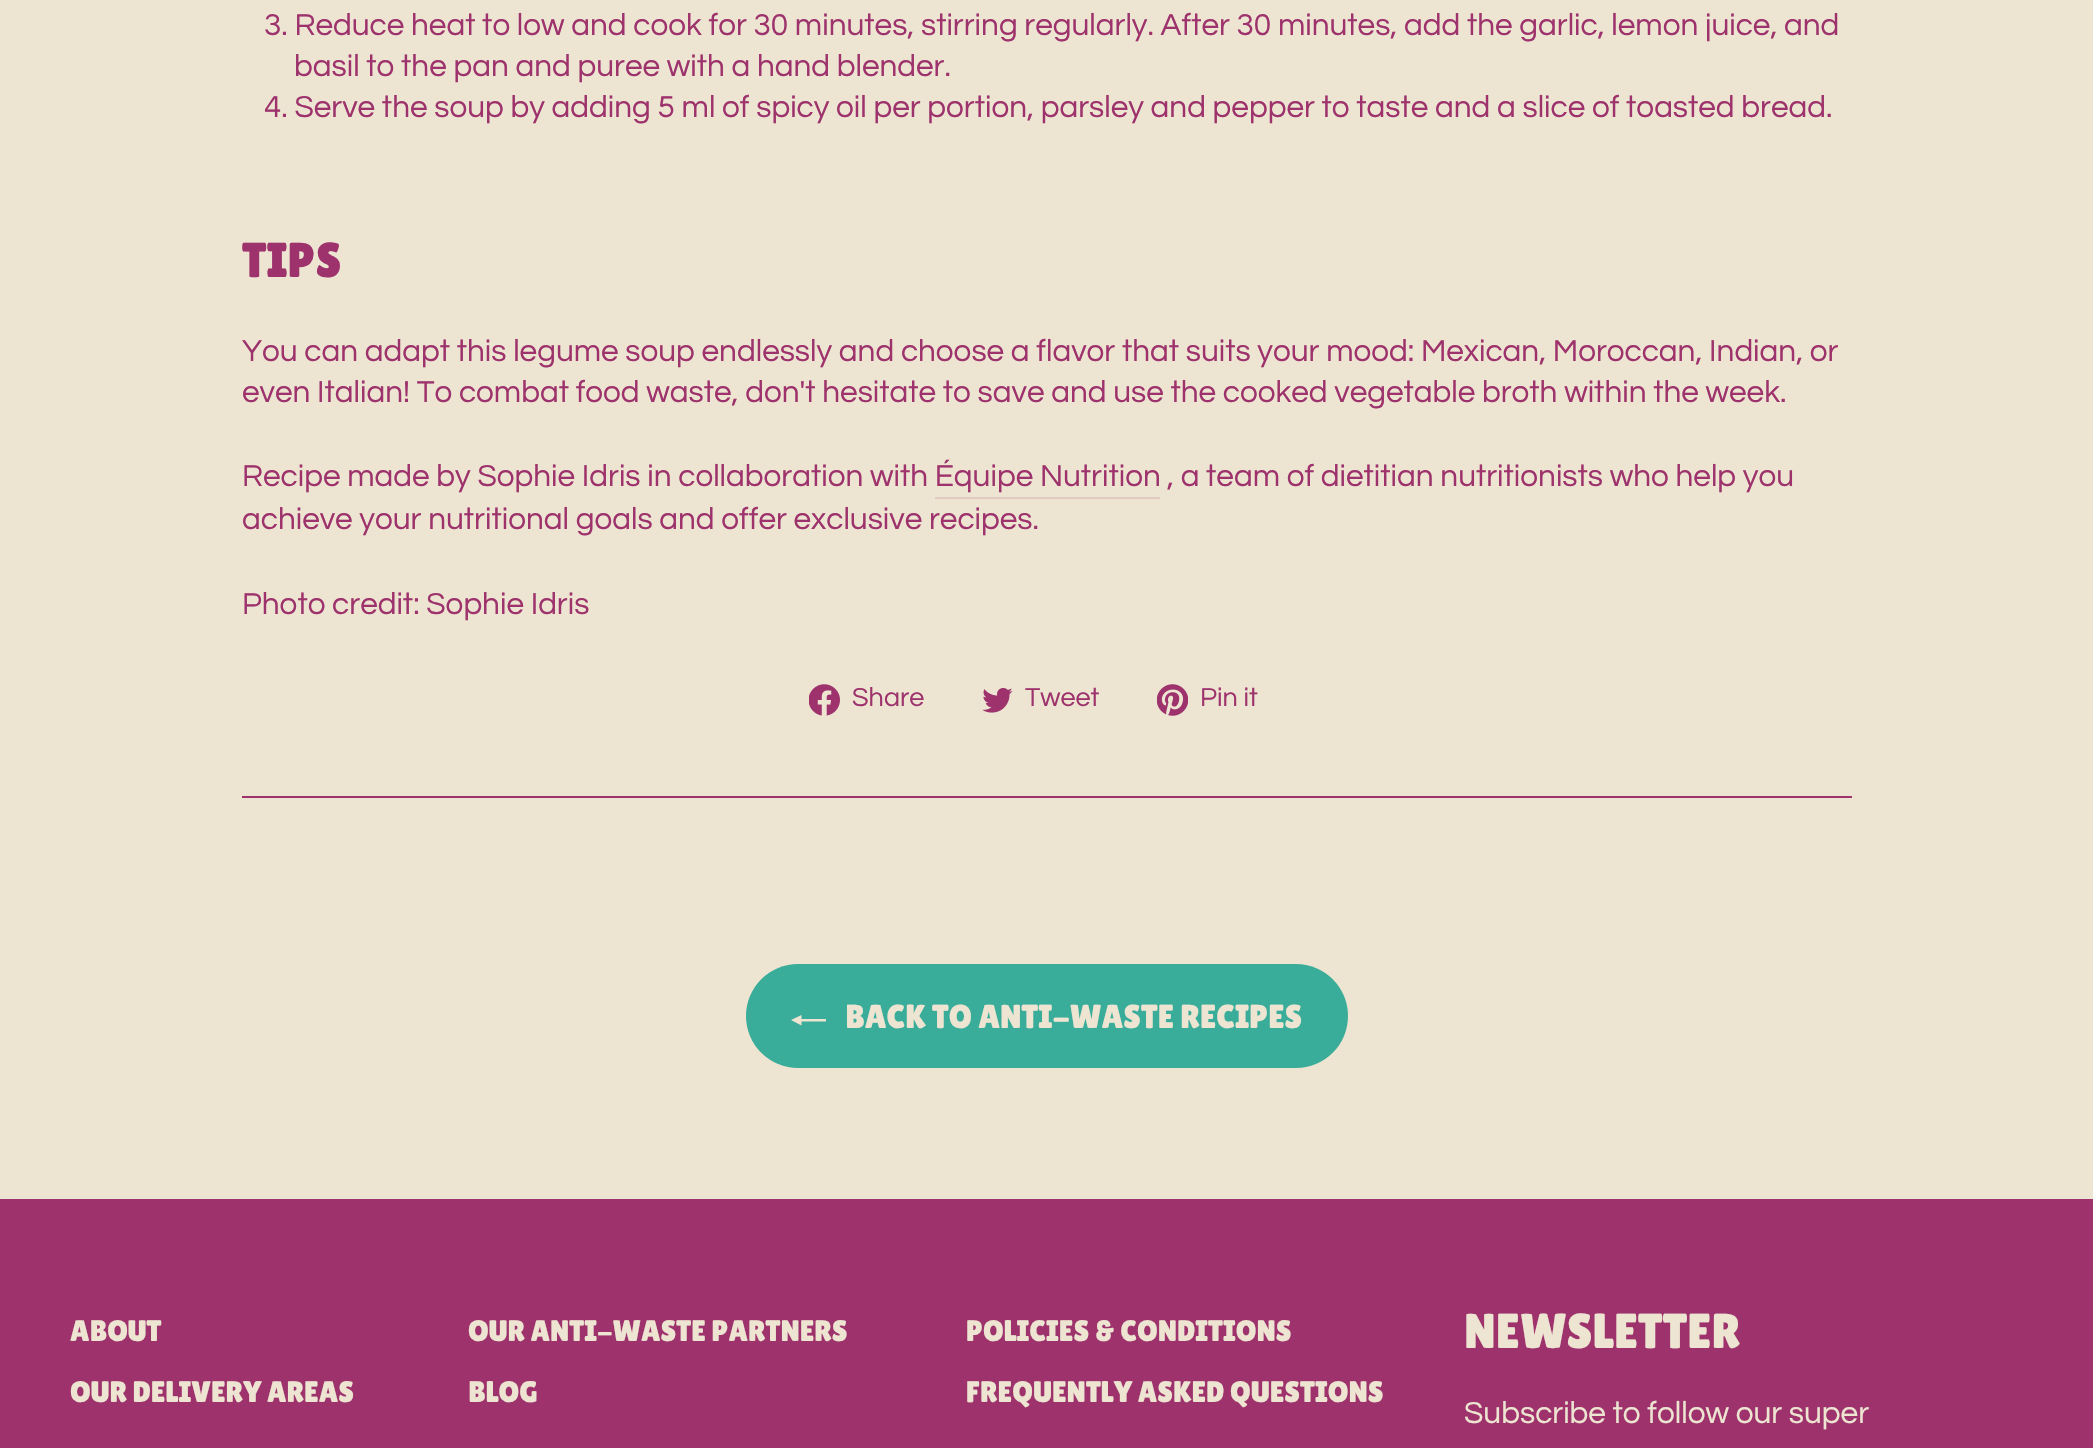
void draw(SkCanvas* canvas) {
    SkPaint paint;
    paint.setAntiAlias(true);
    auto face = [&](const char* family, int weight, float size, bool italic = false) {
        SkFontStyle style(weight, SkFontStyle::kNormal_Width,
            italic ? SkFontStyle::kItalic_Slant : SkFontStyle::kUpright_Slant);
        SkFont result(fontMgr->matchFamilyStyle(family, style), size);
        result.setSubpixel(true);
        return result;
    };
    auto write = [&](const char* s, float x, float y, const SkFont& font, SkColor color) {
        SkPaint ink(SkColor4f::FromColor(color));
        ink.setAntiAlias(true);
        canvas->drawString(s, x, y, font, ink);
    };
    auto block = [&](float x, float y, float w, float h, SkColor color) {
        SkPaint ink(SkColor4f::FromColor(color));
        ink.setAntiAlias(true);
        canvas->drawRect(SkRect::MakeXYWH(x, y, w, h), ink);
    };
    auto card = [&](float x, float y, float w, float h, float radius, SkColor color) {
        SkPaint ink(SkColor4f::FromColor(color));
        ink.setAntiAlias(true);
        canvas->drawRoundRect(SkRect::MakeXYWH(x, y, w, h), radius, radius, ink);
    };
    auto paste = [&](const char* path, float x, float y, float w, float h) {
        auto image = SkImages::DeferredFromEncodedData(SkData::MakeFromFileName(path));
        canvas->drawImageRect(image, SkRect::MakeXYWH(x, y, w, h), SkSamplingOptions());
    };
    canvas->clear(SkColorSetRGB(237, 229, 209));
    auto kFont1 = face("Questrial", 400, 31.5f);
    write("3. Reduce heat to low and cook for 30 minutes, stirring regularly. After 30 minutes, add the garlic, lemon juice, and", 264, 35, kFont1, SkColorSetRGB(157, 50, 108));
    write("basil to the pan and puree with a hand blender.", 294, 76, kFont1, SkColorSetRGB(157, 50, 108));
    write("4. Serve the soup by adding 5 ml of spicy oil per portion, parsley and pepper to taste and a slice of toasted bread.", 264, 117, kFont1, SkColorSetRGB(157, 50, 108));
    auto kFont2 = face("Lilita One", 400, 49);
    write("TIPS", 242, 277, kFont2, SkColorSetRGB(157, 50, 108));
    write("You can adapt this legume soup endlessly and choose a flavor that suits your mood: Mexican, Moroccan, Indian, or", 242, 361, kFont1, SkColorSetRGB(157, 50, 108));
    write("even Italian! To combat food waste, don't hesitate to save and use the cooked vegetable broth within the week.", 242, 402, kFont1, SkColorSetRGB(157, 50, 108));
    write("Recipe made by Sophie Idris in collaboration with Équipe Nutrition", 242, 486, kFont1, SkColorSetRGB(157, 50, 108));
    write(", a team of dietitian nutritionists who help you", 1167, 486, kFont1, SkColorSetRGB(157, 50, 108));
    block(935, 497, 225, 2, SkColorSetRGB(225, 202, 194));
    write("achieve your nutritional goals and offer exclusive recipes.", 242, 529, kFont1, SkColorSetRGB(157, 50, 108));
    write("Photo credit: Sophie Idris", 242, 614, kFont1, SkColorSetRGB(157, 50, 108));
    paste("pic1.png", 809, 684, 31, 32);
    auto kFont3 = face("Questrial", 400, 27);
    write("Share", 852, 706, kFont3, SkColorSetRGB(157, 50, 108));
    paste("pic2.png", 982, 688, 31, 25);
    write("Tweet", 1025, 706, kFont3, SkColorSetRGB(157, 50, 108));
    paste("pic3.png", 1157, 684, 31, 32);
    write("Pin it", 1200, 706, kFont3, SkColorSetRGB(157, 50, 108));
    block(242, 796, 1610, 2, SkColorSetRGB(157, 50, 108));
    card(746, 964, 602, 104, 52, SkColorSetRGB(58, 172, 154));
    paint.setColor(SkColorSetRGB(237, 229, 209));
    canvas->drawPath(SkPathBuilder().moveTo(826, 1019).lineTo(826, 1021.5f).lineTo(801.5f, 1021.5f).lineTo(801.5f, 1025.5f).lineTo(791, 1020).lineTo(801.5f, 1015).lineTo(801.5f, 1019).close().detach(), paint);
    auto kFont4 = face("Lilita One", 400, 33.25f);
    write("BACK TO ANTI-WASTE RECIPES", 845, 1028, kFont4, SkColorSetRGB(237, 229, 209));
    block(0, 1199, 2093, 249, SkColorSetRGB(157, 50, 108));
    auto kFont5 = face("Lilita One", 400, 29.75f);
    write("ABOUT", 70, 1341, kFont5, SkColorSetRGB(237, 229, 209));
    write("OUR DELIVERY AREAS", 70, 1402, kFont5, SkColorSetRGB(237, 229, 209));
    write("OUR ANTI-WASTE PARTNERS", 468, 1341, kFont5, SkColorSetRGB(237, 229, 209));
    write("BLOG", 468, 1402, kFont5, SkColorSetRGB(237, 229, 209));
    write("POLICIES & CONDITIONS", 966, 1341, kFont5, SkColorSetRGB(237, 229, 209));
    write("FREQUENTLY ASKED QUESTIONS", 966, 1402, kFont5, SkColorSetRGB(237, 229, 209));
    write("NEWSLETTER", 1464, 1348, kFont2, SkColorSetRGB(237, 229, 209));
    write("Subscribe to follow our super", 1464, 1423, kFont1, SkColorSetRGB(237, 229, 209));
}
